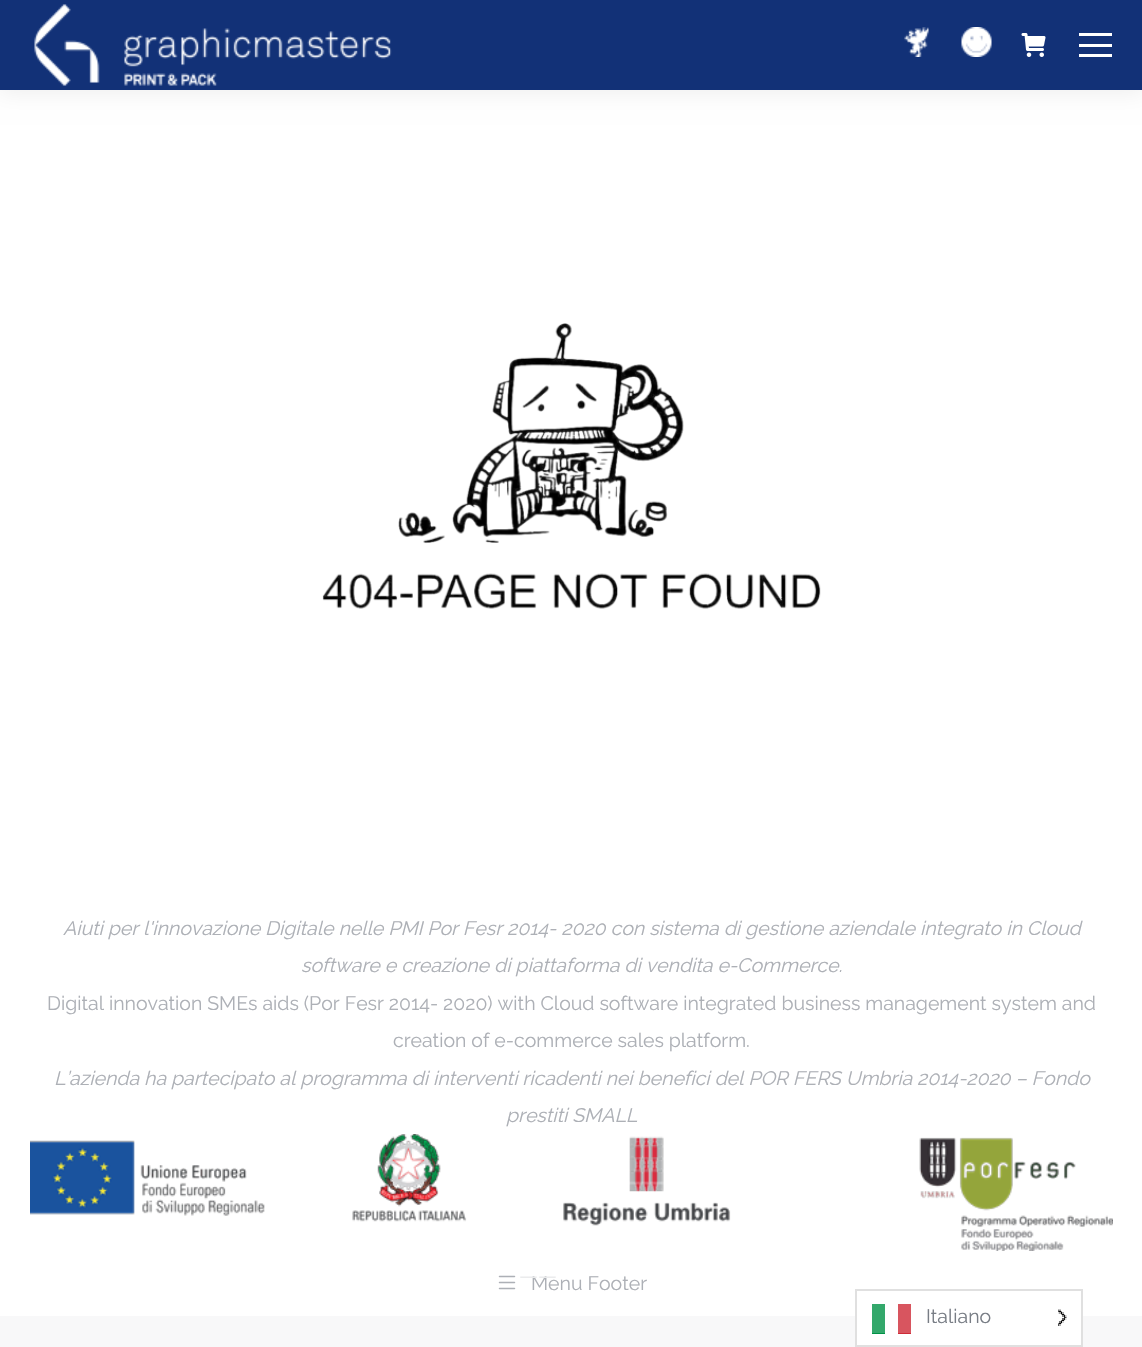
void draw(SkCanvas* canvas) {
    SkPaint paint;
    paint.setAntiAlias(true);
    auto face = [&](const char* family, int weight, float size, bool italic = false) {
        SkFontStyle style(weight, SkFontStyle::kNormal_Width,
            italic ? SkFontStyle::kItalic_Slant : SkFontStyle::kUpright_Slant);
        SkFont result(fontMgr->matchFamilyStyle(family, style), size);
        result.setSubpixel(true);
        return result;
    };
    auto write = [&](const char* s, float x, float y, const SkFont& font, SkColor color) {
        SkPaint ink(SkColor4f::FromColor(color));
        ink.setAntiAlias(true);
        canvas->drawString(s, x, y, font, ink);
    };
    auto block = [&](float x, float y, float w, float h, SkColor color) {
        SkPaint ink(SkColor4f::FromColor(color));
        ink.setAntiAlias(true);
        canvas->drawRect(SkRect::MakeXYWH(x, y, w, h), ink);
    };
    auto paste = [&](const char* path, float x, float y, float w, float h) {
        auto image = SkImages::DeferredFromEncodedData(SkData::MakeFromFileName(path));
        canvas->drawImageRect(image, SkRect::MakeXYWH(x, y, w, h), SkSamplingOptions());
    };
    canvas->clear(SkColorSetRGB(248, 248, 249));
    block(0, 90, 1142, 1226, SK_ColorWHITE);
    paint.setColor(SkColorSetARGB(18, 0, 0, 0));
    paint.setMaskFilter(SkMaskFilter::MakeBlur(kNormal_SkBlurStyle, 11));
    canvas->drawRect(SkRect::MakeXYWH(-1, -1, 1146, 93), paint);
    paint.setMaskFilter(nullptr);
    block(0, 0, 1142, 90, SkColorSetRGB(18, 49, 119));
    paste("pic1.png", 34, 4, 358, 82);
    paste("pic2.png", 904, 27, 25, 30);
    paste("pic3.png", 961, 27, 31, 30);
    paste("pic4.png", 1021, 33, 25, 24);
    block(1079, 33, 33, 3, SK_ColorWHITE);
    block(1079, 44, 33, 3, SK_ColorWHITE);
    block(1079, 54, 33, 3, SK_ColorWHITE);
    paste("pic5.png", 322, 323, 499, 286);
    auto kFont1 = face("Raleway", 400, 19.5f, true);
    write("Aiuti per l'innovazione Digitale nelle PMI Por Fesr 2014- 2020 con sistema di gestione aziendale integrato in Cloud", 63, 935, kFont1, SkColorSetRGB(173, 176, 182));
    write("software e creazione di piattaforma di vendita e-Commerce.", 301, 972, kFont1, SkColorSetRGB(173, 176, 182));
    auto kFont2 = face("Raleway", 400, 19.5f);
    write("Digital innovation SMEs aids (Por Fesr 2014- 2020) with Cloud software integrated business management system and", 47, 1010, kFont2, SkColorSetRGB(173, 176, 182));
    write("creation of e-commerce sales platform.", 393, 1047, kFont2, SkColorSetRGB(173, 176, 182));
    write("L’azienda ha partecipato al programma di interventi ricadenti nei benefici del POR FERS Umbria 2014-2020 – Fondo", 54, 1085, kFont1, SkColorSetRGB(173, 176, 182));
    write("prestiti SMALL", 506, 1122, kFont1, SkColorSetRGB(173, 176, 182));
    paste("pic6.png", 30, 1134, 1083, 117);
    paste("pic7.png", 498, 1275, 18, 15);
    write("Menu Footer", 531, 1290, kFont2, SkColorSetRGB(173, 176, 182));
    auto kFont3 = face("Raleway", 400, 21);
    write("——", 519, 1283, kFont3, SkColorSetRGB(235, 236, 237));
    block(857, 1316, 224, 29, SK_ColorWHITE);
    paint.setStyle(SkPaint::kStroke_Style);
    paint.setStrokeWidth(2);
    paint.setColor(SkColorSetRGB(224, 224, 224));
    canvas->drawRect(SkRect::MakeXYWH(856, 1290, 226, 56), paint);
    block(872, 1333, 13, 1, SkColorSetRGB(0, 146, 70));
    block(872, 1304, 13, 29, SkColorSetRGB(51, 168, 107));
    block(898, 1333, 13, 1, SkColorSetRGB(206, 43, 55));
    block(898, 1304, 13, 29, SkColorSetRGB(216, 85, 95));
    write("Italiano", 926, 1323, kFont2, SkColorSetRGB(120, 125, 133));
    paste("pic8.png", 1058, 1309, 9, 17);
}
